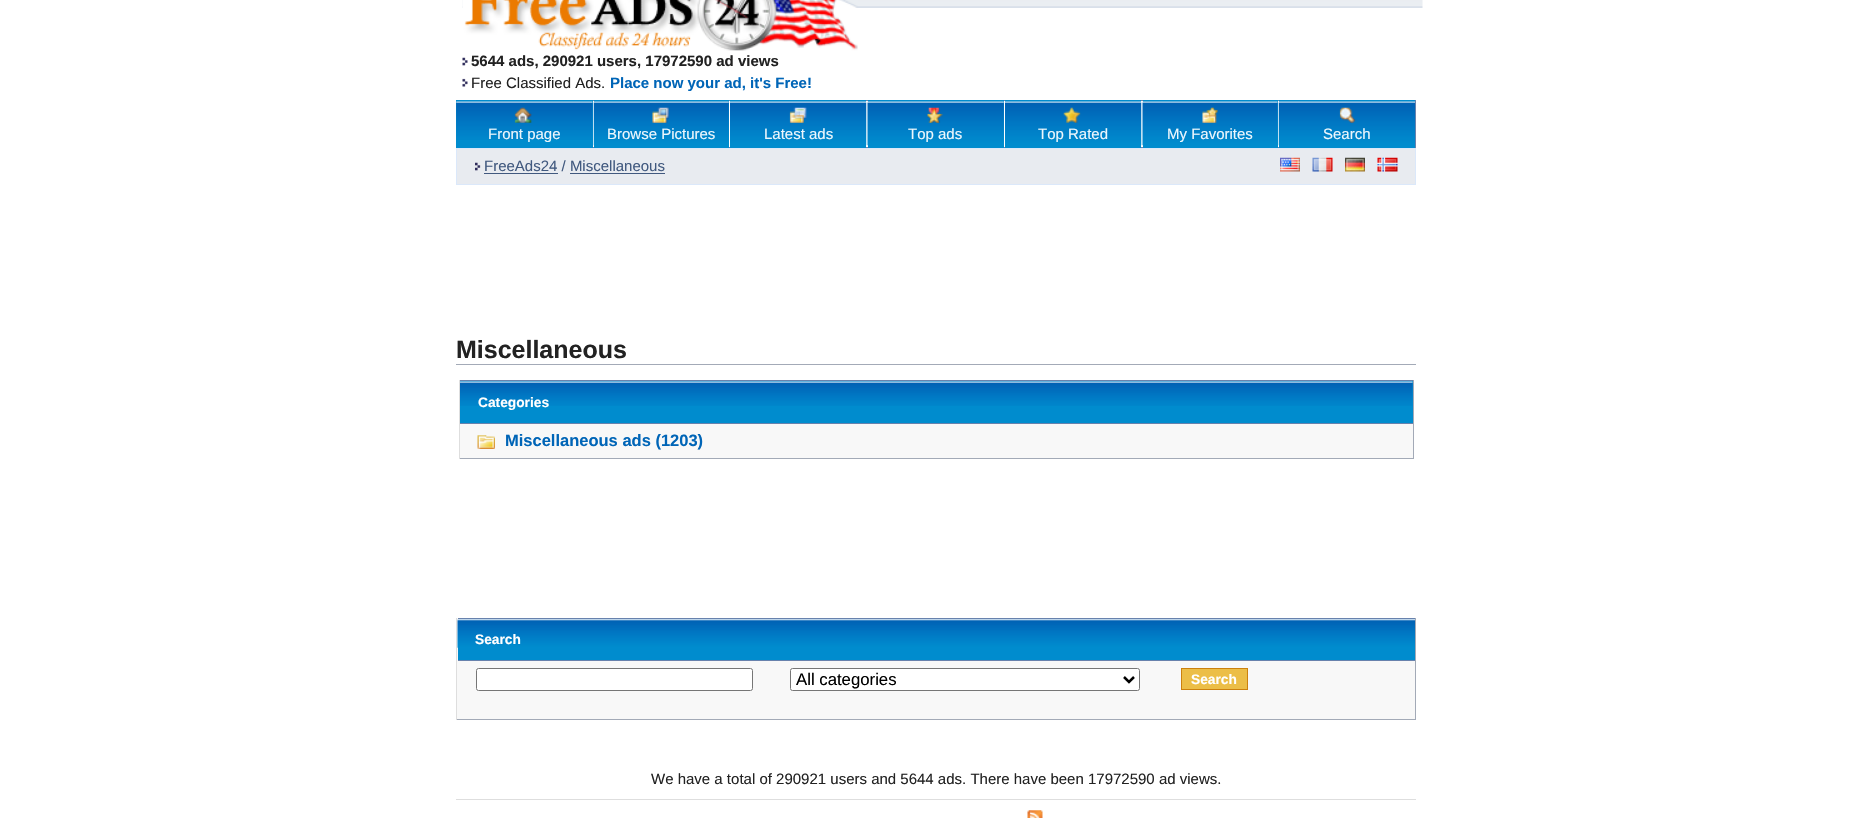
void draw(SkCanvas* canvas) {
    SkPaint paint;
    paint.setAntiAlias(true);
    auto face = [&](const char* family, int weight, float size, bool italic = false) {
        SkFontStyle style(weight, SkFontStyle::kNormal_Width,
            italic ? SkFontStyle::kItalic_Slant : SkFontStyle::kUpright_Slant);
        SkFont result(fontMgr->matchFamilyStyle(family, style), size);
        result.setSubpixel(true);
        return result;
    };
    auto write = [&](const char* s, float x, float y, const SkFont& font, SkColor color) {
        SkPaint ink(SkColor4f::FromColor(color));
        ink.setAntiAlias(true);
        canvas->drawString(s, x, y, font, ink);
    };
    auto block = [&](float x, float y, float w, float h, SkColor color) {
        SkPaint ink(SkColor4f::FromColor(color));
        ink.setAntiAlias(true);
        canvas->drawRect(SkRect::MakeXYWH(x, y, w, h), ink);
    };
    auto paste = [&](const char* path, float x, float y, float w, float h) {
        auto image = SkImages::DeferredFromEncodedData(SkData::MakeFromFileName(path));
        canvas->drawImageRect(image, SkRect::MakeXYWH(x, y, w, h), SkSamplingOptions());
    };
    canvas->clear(SK_ColorWHITE);
    paste("pic1.png", 462, 0, 961, 8);
    paste("pic2.png", 462, 0, 396, 51);
    paste("pic3.png", 462, 57, 6, 9);
    auto kFont1 = face("Liberation Sans", 700, 15);
    write("5644 ads, 290921 users, 17972590 ad views", 471, 66, kFont1, SkColorSetRGB(34, 34, 34));
    paste("pic4.png", 462, 78, 6, 9);
    auto kFont2 = face("Liberation Sans", 400, 15);
    write("Free Classified Ads.", 471, 88, kFont2, SkColorSetRGB(34, 34, 34));
    write("Place now your ad, it's Free!", 610, 88, kFont1, SkColorSetRGB(0, 101, 183));
    paint.setStyle(SkPaint::kStroke_Style);
    paint.setStrokeWidth(1);
    paint.setColor(SkColorSetRGB(104, 130, 173));
    canvas->drawRect(SkRect::MakeXYWH(456.5f, 100.5f, 959, 47), paint);
    block(456, 100, 137, 48, SkColorSetRGB(0, 140, 206));
    paste("pic5.png", 456, 101, 137, 39);
    paste("pic6.png", 514, 107, 18, 16);
    write("Front page", 488, 139, kFont2, SkColorSetRGB(237, 247, 253));
    block(594, 100, 135, 48, SkColorSetRGB(0, 140, 206));
    paste("pic7.png", 593, 101, 136, 45);
    paste("pic8.png", 652, 107, 17, 16);
    write("Browse Pictures", 607, 139, kFont2, SkColorSetRGB(237, 247, 253));
    block(730, 100, 136, 48, SkColorSetRGB(0, 140, 206));
    paste("pic9.png", 730, 101, 137, 45);
    paste("pic10.png", 789, 107, 18, 16);
    write("Latest ads", 764, 139, kFont2, SkColorSetRGB(237, 247, 253));
    block(868, 100, 136, 48, SkColorSetRGB(0, 140, 206));
    paste("pic11.png", 867, 101, 137, 45);
    paste("pic12.png", 927, 107, 16, 16);
    write("Top ads", 908, 139, kFont2, SkColorSetRGB(237, 247, 253));
    block(1005, 100, 136, 48, SkColorSetRGB(0, 140, 206));
    paste("pic9.png", 1005, 101, 137, 45);
    paste("pic13.png", 1063, 107, 18, 16);
    write("Top Rated", 1038, 139, kFont2, SkColorSetRGB(237, 247, 253));
    block(1143, 100, 135, 48, SkColorSetRGB(0, 140, 206));
    paste("pic14.png", 1142, 101, 136, 45);
    paste("pic15.png", 1202, 107, 16, 16);
    write("My Favorites", 1167, 139, kFont2, SkColorSetRGB(237, 247, 253));
    block(1279, 100, 136, 48, SkColorSetRGB(0, 140, 206));
    paste("pic16.png", 1278, 101, 137, 45);
    paste("pic17.png", 1339, 107, 17, 16);
    write("Search", 1323, 139, kFont2, SkColorSetRGB(237, 247, 253));
    paint.setStyle(SkPaint::kFill_Style);
    paint.setColor(SkColorSetRGB(232, 235, 240));
    canvas->drawRect(SkRect::MakeXYWH(456.5f, 148.5f, 959, 36), paint);
    paint.setStyle(SkPaint::kStroke_Style);
    paint.setColor(SkColorSetRGB(219, 232, 250));
    canvas->drawRect(SkRect::MakeXYWH(456.5f, 148.5f, 959, 36), paint);
    paste("pic18.png", 475, 162, 6, 9);
    write("FreeAds24 / Miscellaneous", 484, 171, kFont2, SkColorSetRGB(65, 89, 127));
    block(484, 173, 74, 1, SkColorSetRGB(65, 89, 127));
    block(570, 173, 95, 1, SkColorSetRGB(65, 89, 127));
    paste("pic19.png", 1280, 157, 20, 15);
    paste("pic20.png", 1312, 157, 21, 15);
    paste("pic21.png", 1345, 157, 20, 15);
    paste("pic22.png", 1377, 157, 21, 15);
    block(456, 364, 960, 1, SkColorSetRGB(163, 170, 183));
    auto kFont3 = face("Liberation Sans", 700, 25);
    write("Miscellaneous", 456, 358, kFont3, SkColorSetRGB(34, 34, 34));
    block(460, 424, 953, 34, SkColorSetRGB(248, 248, 248));
    block(1413, 380, 1, 79, SkColorSetRGB(163, 170, 183));
    block(459, 458, 955, 1, SkColorSetRGB(163, 170, 183));
    block(459, 380, 1, 79, SkColorSetRGB(222, 222, 222));
    block(460, 381, 953, 42, SkColorSetRGB(0, 140, 206));
    paste("pic23.png", 460, 381, 953, 25);
    block(460, 380, 953, 1, SkColorSetRGB(104, 130, 173));
    block(460, 423, 953, 1, SkColorSetRGB(104, 130, 173));
    auto kFont4 = face("Liberation Sans", 700, 13.75f);
    write("Categories", 478, 407, kFont4, SK_ColorWHITE);
    paste("pic24.png", 477, 435, 18, 14);
    auto kFont5 = face("Liberation Sans", 700, 16.5f);
    write("Miscellaneous ads (1203)", 505, 446, kFont5, SkColorSetRGB(0, 101, 183));
    block(457, 618, 958, 101, SkColorSetRGB(248, 248, 248));
    block(1415, 618, 1, 102, SkColorSetRGB(163, 170, 183));
    block(456, 719, 960, 1, SkColorSetRGB(163, 170, 183));
    block(456, 618, 1, 102, SkColorSetRGB(222, 222, 222));
    block(458, 647, 957, 13, SkColorSetRGB(0, 140, 206));
    paste("pic25.png", 457, 619, 958, 29);
    block(458, 618, 957, 1, SkColorSetRGB(104, 130, 173));
    block(458, 660, 957, 1, SkColorSetRGB(104, 130, 173));
    write("Search", 475, 644, kFont4, SK_ColorWHITE);
    paint.setStyle(SkPaint::kFill_Style);
    paint.setColor(SK_ColorWHITE);
    canvas->drawRoundRect(SkRect::MakeXYWH(476.5f, 668.5f, 276, 22), 2, 2, paint);
    paint.setStyle(SkPaint::kStroke_Style);
    paint.setColor(SkColorSetRGB(118, 118, 118));
    canvas->drawRoundRect(SkRect::MakeXYWH(476.5f, 668.5f, 276, 22), 2, 2, paint);
    paint.setStyle(SkPaint::kFill_Style);
    paint.setColor(SK_ColorWHITE);
    canvas->drawRoundRect(SkRect::MakeXYWH(790.5f, 668.5f, 349, 22), 2, 2, paint);
    paint.setStyle(SkPaint::kStroke_Style);
    paint.setColor(SkColorSetRGB(118, 118, 118));
    canvas->drawRoundRect(SkRect::MakeXYWH(790.5f, 668.5f, 349, 22), 2, 2, paint);
    paint.setStrokeWidth(2.5f);
    paint.setColor(SK_ColorBLACK);
    canvas->drawPath(SkPathBuilder().moveTo(1124, 677).lineTo(1129, 682).lineTo(1134, 677).detach(), paint);
    auto kFont6 = face("Liberation Sans", 400, 16.75f);
    write("All categories", 796, 685, kFont6, SK_ColorBLACK);
    paint.setStyle(SkPaint::kFill_Style);
    paint.setColor(SkColorSetRGB(236, 190, 71));
    canvas->drawRect(SkRect::MakeXYWH(1181.5f, 668.5f, 66, 21), paint);
    paint.setStyle(SkPaint::kStroke_Style);
    paint.setStrokeWidth(1);
    paint.setColor(SkColorSetRGB(204, 129, 13));
    canvas->drawRect(SkRect::MakeXYWH(1181.5f, 668.5f, 66, 21), paint);
    write("Search", 1191, 684, kFont4, SK_ColorWHITE);
    write("We have a total of 290921 users and 5644 ads. There have been 17972590 ad views.", 651, 784, kFont2, SkColorSetRGB(34, 34, 34));
    block(456, 799, 960, 1, SkColorSetRGB(222, 222, 222));
    paste("pic26.png", 1027, 810, 16, 8);
}
